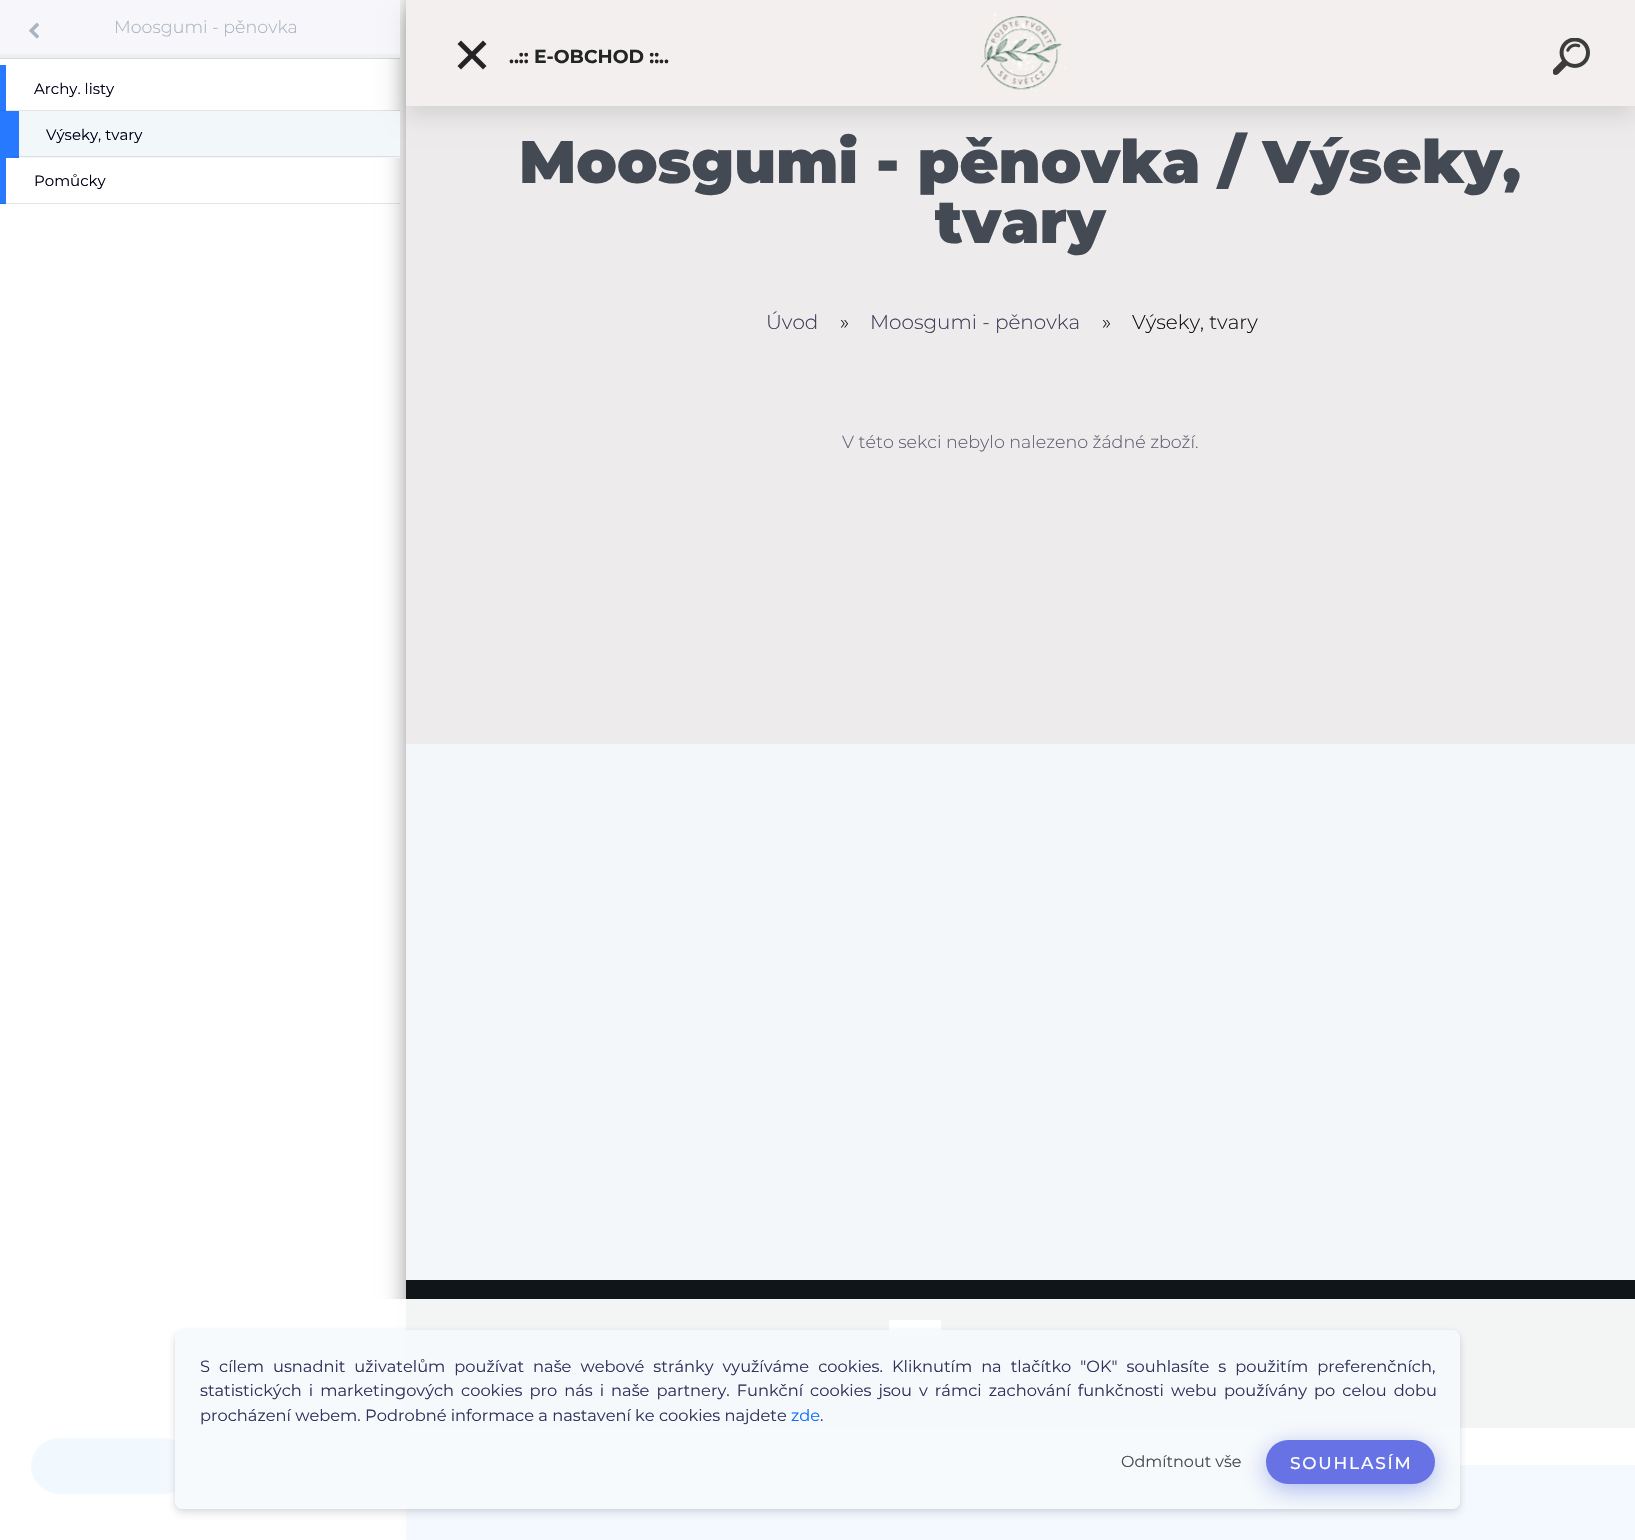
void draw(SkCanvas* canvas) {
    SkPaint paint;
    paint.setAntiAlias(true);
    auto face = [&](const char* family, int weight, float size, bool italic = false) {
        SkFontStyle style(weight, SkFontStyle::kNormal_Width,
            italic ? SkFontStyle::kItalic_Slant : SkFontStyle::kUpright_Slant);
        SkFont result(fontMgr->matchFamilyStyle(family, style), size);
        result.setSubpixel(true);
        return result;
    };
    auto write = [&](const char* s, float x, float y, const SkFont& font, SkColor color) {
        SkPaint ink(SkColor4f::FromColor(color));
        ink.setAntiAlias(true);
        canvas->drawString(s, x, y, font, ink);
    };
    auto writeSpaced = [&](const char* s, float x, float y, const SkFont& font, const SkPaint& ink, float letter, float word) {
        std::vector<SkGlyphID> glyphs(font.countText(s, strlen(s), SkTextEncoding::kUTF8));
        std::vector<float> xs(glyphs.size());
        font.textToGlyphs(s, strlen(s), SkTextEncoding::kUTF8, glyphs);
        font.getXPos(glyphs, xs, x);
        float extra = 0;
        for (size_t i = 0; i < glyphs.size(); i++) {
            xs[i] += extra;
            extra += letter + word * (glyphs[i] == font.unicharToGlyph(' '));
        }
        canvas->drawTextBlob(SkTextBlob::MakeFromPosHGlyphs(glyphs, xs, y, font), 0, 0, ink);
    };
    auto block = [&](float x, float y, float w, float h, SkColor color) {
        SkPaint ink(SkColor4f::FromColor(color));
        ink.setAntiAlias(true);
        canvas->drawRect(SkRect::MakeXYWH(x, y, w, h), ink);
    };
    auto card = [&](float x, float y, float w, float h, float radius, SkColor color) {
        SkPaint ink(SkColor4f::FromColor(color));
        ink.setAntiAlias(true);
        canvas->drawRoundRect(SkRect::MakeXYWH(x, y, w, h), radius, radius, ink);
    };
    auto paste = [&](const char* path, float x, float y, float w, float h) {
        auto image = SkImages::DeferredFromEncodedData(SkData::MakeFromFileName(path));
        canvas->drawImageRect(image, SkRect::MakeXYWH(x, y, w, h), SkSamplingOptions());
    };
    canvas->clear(SK_ColorWHITE);
    paint.setColor(SK_ColorBLACK);
    paint.setMaskFilter(SkMaskFilter::MakeBlur(kNormal_SkBlurStyle, 15.5f));
    canvas->drawRect(SkRect::MakeXYWH(419, -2, 400, 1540), paint);
    paint.setMaskFilter(nullptr);
    block(0, 58, 400, 1, SkColorSetARGB(38, 0, 0, 0));
    block(0, 0, 400, 54, SkColorSetRGB(247, 246, 251));
    block(0, 54, 400, 4, SkColorSetRGB(236, 240, 241));
    paste("pic1.png", 29, 22, 10, 17);
    auto kFont1 = face("Montserrat", 300, 17.5f);
    write("Moosgumi - pěnovka", 114, 33, kFont1, SkColorSetRGB(171, 180, 190));
    block(0, 65, 6, 46, SkColorSetRGB(39, 121, 255));
    auto kFont2 = face("Montserrat", 400, 15);
    write("Archy. listy", 34, 94, kFont2, SkColorSetRGB(0, 0, 25));
    block(0, 110, 400, 1, SkColorSetARGB(26, 0, 0, 0));
    block(19, 111, 381, 47, SkColorSetRGB(242, 248, 250));
    block(0, 111, 19, 47, SkColorSetRGB(39, 121, 255));
    write("Výseky, tvary", 46, 140, kFont2, SkColorSetRGB(0, 0, 25));
    block(13, 156, 387, 1, SkColorSetARGB(26, 0, 0, 0));
    block(0, 158, 6, 46, SkColorSetRGB(39, 121, 255));
    write("Pomůcky", 34, 186, kFont2, SkColorSetRGB(0, 0, 25));
    block(0, 203, 400, 1, SkColorSetARGB(26, 0, 0, 0));
    block(383, 1391, 17, 149, SK_ColorWHITE);
    block(0, 1390, 400, 1, SkColorSetRGB(217, 217, 217));
    paint.setColor(SkColorSetRGB(0, 132, 230));
    canvas->drawRoundRect(SkRect::MakeXYWH(31.5f, 1438.5f, 159, 55), 27.5f, 27.5f, paint);
    paint.setStyle(SkPaint::kStroke_Style);
    paint.setStrokeWidth(1);
    canvas->drawRoundRect(SkRect::MakeXYWH(31.5f, 1438.5f, 159, 55), 27.5f, 27.5f, paint);
    paint.setStrokeWidth(3);
    canvas->drawRoundRect(SkRect::MakeXYWH(211.5f, 1439.5f, 157, 53), 26.5f, 26.5f, paint);
    block(406, 106, 1229, 638, SkColorSetRGB(237, 235, 235));
    paint.setStyle(SkPaint::kFill_Style);
    paint.setColor(SkColorSetARGB(26, 0, 0, 0));
    paint.setMaskFilter(SkMaskFilter::MakeBlur(kNormal_SkBlurStyle, 10));
    canvas->drawRect(SkRect::MakeXYWH(406, 10, 1229, 106), paint);
    paint.setMaskFilter(nullptr);
    block(406, 0, 1229, 106, SkColorSetRGB(243, 239, 239));
    paint.setColor(SkColorSetRGB(36, 36, 36));
    canvas->drawPath(SkPathBuilder().moveTo(486.5f, 44).lineTo(461, 69.5f).lineTo(457.5f, 66).lineTo(483, 40.5f).close().detach(), paint);
    canvas->drawPath(SkPathBuilder().moveTo(483, 69.5f).lineTo(457.5f, 44).lineTo(461, 40.5f).lineTo(486.5f, 66).close().detach(), paint);
    auto kFont3 = face("Montserrat", 700, 18.75f);
    write("..:: E-OBCHOD ::..", 509, 63, kFont3, SkColorSetRGB(36, 36, 36));
    paste("pic2.png", 980, 13, 86, 79);
    paste("pic3.png", 1553, 38, 37, 37);
    block(406, 744, 1229, 536, SkColorSetRGB(244, 247, 249));
    auto kFont4 = face("Montserrat", 900, 60);
    write("Moosgumi - pěnovka / Výseky,", 519, 183, kFont4, SkColorSetRGB(67, 74, 84));
    write("tvary", 935, 243, kFont4, SkColorSetRGB(67, 74, 84));
    auto kFont5 = face("Montserrat", 300, 20);
    write("Úvod", 766, 329, kFont5, SkColorSetRGB(63, 61, 89));
    write("»", 840, 329, kFont5, SkColorSetRGB(16, 16, 16));
    write("Moosgumi - pěnovka", 870, 329, kFont5, SkColorSetRGB(63, 61, 89));
    write("»", 1102, 329, kFont5, SkColorSetRGB(16, 16, 16));
    write("Výseky, tvary", 1132, 329, kFont5, SkColorSetRGB(16, 16, 16));
    write("V této sekci nebylo nalezeno žádné zboží.", 842, 448, kFont1, SkColorSetRGB(96, 95, 115));
    block(406, 1280, 1229, 148, SkColorSetRGB(16, 21, 26));
    block(889, 1320, 52, 16, SK_ColorWHITE);
    block(918, 1385, 206, 16, SK_ColorWHITE);
    block(406, 1429, 449, 36, SK_ColorWHITE);
    block(406, 1428, 1229, 1, SkColorSetRGB(218, 218, 218));
    block(406, 1465, 1229, 75, SkColorSetRGB(39, 121, 255));
    block(0, 1299, 1635, 241, SkColorSetARGB(242, 255, 255, 255));
    canvas->save();
    canvas->clipPath(SkPathBuilder(SkPathFillType::kEvenOdd).moveTo(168, 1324).lineTo(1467, 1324).lineTo(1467, 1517).lineTo(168, 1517).close().moveTo(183, 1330).lineTo(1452, 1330).cubicTo(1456.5f, 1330, 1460, 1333.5f, 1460, 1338).lineTo(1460, 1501).cubicTo(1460, 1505.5f, 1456.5f, 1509, 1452, 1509).lineTo(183, 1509).cubicTo(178.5f, 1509, 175, 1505.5f, 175, 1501).lineTo(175, 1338).cubicTo(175, 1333.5f, 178.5f, 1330, 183, 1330).close().detach(), true);
    paint.setColor(SkColorSetARGB(20, 0, 0, 0));
    paint.setMaskFilter(SkMaskFilter::MakeBlur(kNormal_SkBlurStyle, 2));
    canvas->drawRoundRect(SkRect::MakeXYWH(175, 1331, 1285, 179), 8, 8, paint);
    paint.setMaskFilter(nullptr);
    canvas->restore();
    canvas->save();
    canvas->clipPath(SkPathBuilder(SkPathFillType::kEvenOdd).moveTo(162, 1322).lineTo(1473, 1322).lineTo(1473, 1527).lineTo(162, 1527).close().moveTo(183, 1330).lineTo(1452, 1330).cubicTo(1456.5f, 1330, 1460, 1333.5f, 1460, 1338).lineTo(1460, 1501).cubicTo(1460, 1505.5f, 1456.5f, 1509, 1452, 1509).lineTo(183, 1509).cubicTo(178.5f, 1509, 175, 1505.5f, 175, 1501).lineTo(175, 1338).cubicTo(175, 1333.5f, 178.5f, 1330, 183, 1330).close().detach(), true);
    paint.setColor(SkColorSetARGB(28, 50, 50, 93));
    paint.setMaskFilter(SkMaskFilter::MakeBlur(kNormal_SkBlurStyle, 4));
    canvas->drawRoundRect(SkRect::MakeXYWH(175, 1335, 1285, 179), 8, 8, paint);
    paint.setMaskFilter(nullptr);
    canvas->restore();
    card(175, 1330, 1285, 179, 8, SkColorSetARGB(230, 246, 249, 252));
    auto kFont6 = face("Montserrat", 400, 16.25f);
    paint.setColor(SkColorSetRGB(50, 50, 93));
    writeSpaced("S cílem usnadnit uživatelům používat naše webové stránky využíváme cookies. Kliknutím na tlačítko \"OK\" souhlasíte s použitím preferenčních,", 200, 1372, kFont6, paint, 0, 4.75f);
    writeSpaced("statistických i marketingových cookies pro nás i naše partnery. Funkční cookies jsou v rámci zachování funkčnosti webu používány po celou dobu", 200, 1396, kFont6, paint, 0, 2.75f);
    write("procházení webem. Podrobné informace a nastavení ke cookies najdete", 200, 1421, kFont6, SkColorSetRGB(50, 50, 93));
    write("zde", 791, 1421, kFont6, SkColorSetRGB(13, 110, 253));
    write(".", 820, 1421, kFont6, SkColorSetRGB(50, 50, 93));
    paint.setColor(SkColorSetARGB(102, 58, 84, 214));
    paint.setMaskFilter(SkMaskFilter::MakeBlur(kNormal_SkBlurStyle, 12.5f));
    canvas->drawRoundRect(SkRect::MakeXYWH(1266, 1446, 169, 44), 22, 22, paint);
    paint.setMaskFilter(nullptr);
    auto kFont7 = face("Montserrat", 400, 16);
    write("Odmítnout vše", 1121, 1467, kFont7, SkColorSetRGB(74, 75, 76));
    card(1266, 1440, 169, 44, 22, SkColorSetRGB(103, 114, 229));
    auto kFont8 = face("Montserrat", 500, 17);
    paint.setColor(SK_ColorWHITE);
    writeSpaced("SOUHLASÍM", 1290, 1469, kFont8, paint, 1.75f, 0);
}
